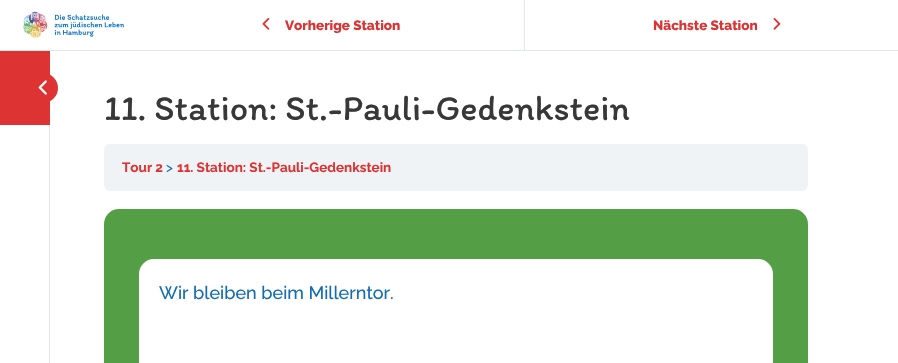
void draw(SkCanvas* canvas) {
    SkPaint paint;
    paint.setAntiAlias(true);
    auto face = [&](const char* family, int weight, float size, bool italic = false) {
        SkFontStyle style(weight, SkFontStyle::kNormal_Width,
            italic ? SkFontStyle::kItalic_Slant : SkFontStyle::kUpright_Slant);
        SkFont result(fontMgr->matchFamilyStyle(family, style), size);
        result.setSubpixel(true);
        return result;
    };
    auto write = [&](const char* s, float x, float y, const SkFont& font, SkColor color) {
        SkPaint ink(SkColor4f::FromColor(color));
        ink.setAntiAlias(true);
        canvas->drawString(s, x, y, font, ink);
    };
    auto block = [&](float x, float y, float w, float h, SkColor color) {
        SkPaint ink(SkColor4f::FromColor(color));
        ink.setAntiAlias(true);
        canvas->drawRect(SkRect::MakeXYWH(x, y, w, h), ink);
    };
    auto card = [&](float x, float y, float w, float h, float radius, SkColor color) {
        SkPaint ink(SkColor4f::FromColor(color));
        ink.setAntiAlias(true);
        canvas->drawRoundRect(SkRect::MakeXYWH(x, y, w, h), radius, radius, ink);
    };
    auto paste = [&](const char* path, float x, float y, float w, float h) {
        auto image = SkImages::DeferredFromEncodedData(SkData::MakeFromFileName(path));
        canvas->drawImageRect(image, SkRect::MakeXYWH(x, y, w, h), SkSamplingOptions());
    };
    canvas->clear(SK_ColorWHITE);
    block(49, 125, 1, 238, SkColorSetRGB(226, 231, 237));
    block(0, 51, 50, 74, SkColorSetRGB(221, 51, 51));
    paint.setColor(SkColorSetRGB(221, 51, 51));
    canvas->drawCircle(43, 88, 15, paint);
    paste("pic1.png", 38, 80, 9, 15);
    block(0, 50, 898, 1, SkColorSetRGB(226, 231, 237));
    paste("pic2.png", 23, 11, 101, 27);
    block(524, 0, 1, 50, SkColorSetRGB(226, 231, 237));
    paste("pic3.png", 262, 18, 8, 12);
    auto kFont1 = face("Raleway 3", 100, 13.5f);
    write("Vorherige Station", 285, 30, kFont1, SkColorSetRGB(221, 51, 51));
    write("Nächste Station", 653, 30, kFont1, SkColorSetRGB(221, 51, 51));
    paste("pic4.png", 773, 18, 8, 12);
    auto kFont2 = face("Itim", 400, 36);
    write("11. Station: St.-Pauli-Gedenkstein", 104, 120, kFont2, SkColorSetRGB(56, 56, 56));
    card(104, 144, 704, 47, 6, SkColorSetRGB(240, 243, 246));
    auto kFont3 = face("Raleway", 100, 13.5f);
    write("Tour 2", 122, 172, kFont3, SkColorSetRGB(221, 51, 51));
    auto kFont4 = face("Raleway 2", 100, 13.5f);
    write(">", 166, 172, kFont4, SkColorSetRGB(17, 108, 178));
    write("11. Station: St.-Pauli-Gedenkstein", 177, 172, kFont3, SkColorSetRGB(221, 51, 51));
    card(104, 209, 704, 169, 15, SkColorSetRGB(84, 159, 69));
    card(139, 259, 634, 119, 15, SK_ColorWHITE);
    auto kFont5 = face("Raleway 2", 100, 18);
    write("Wir bleiben beim Millerntor.", 159, 299, kFont5, SkColorSetRGB(17, 108, 178));
}
